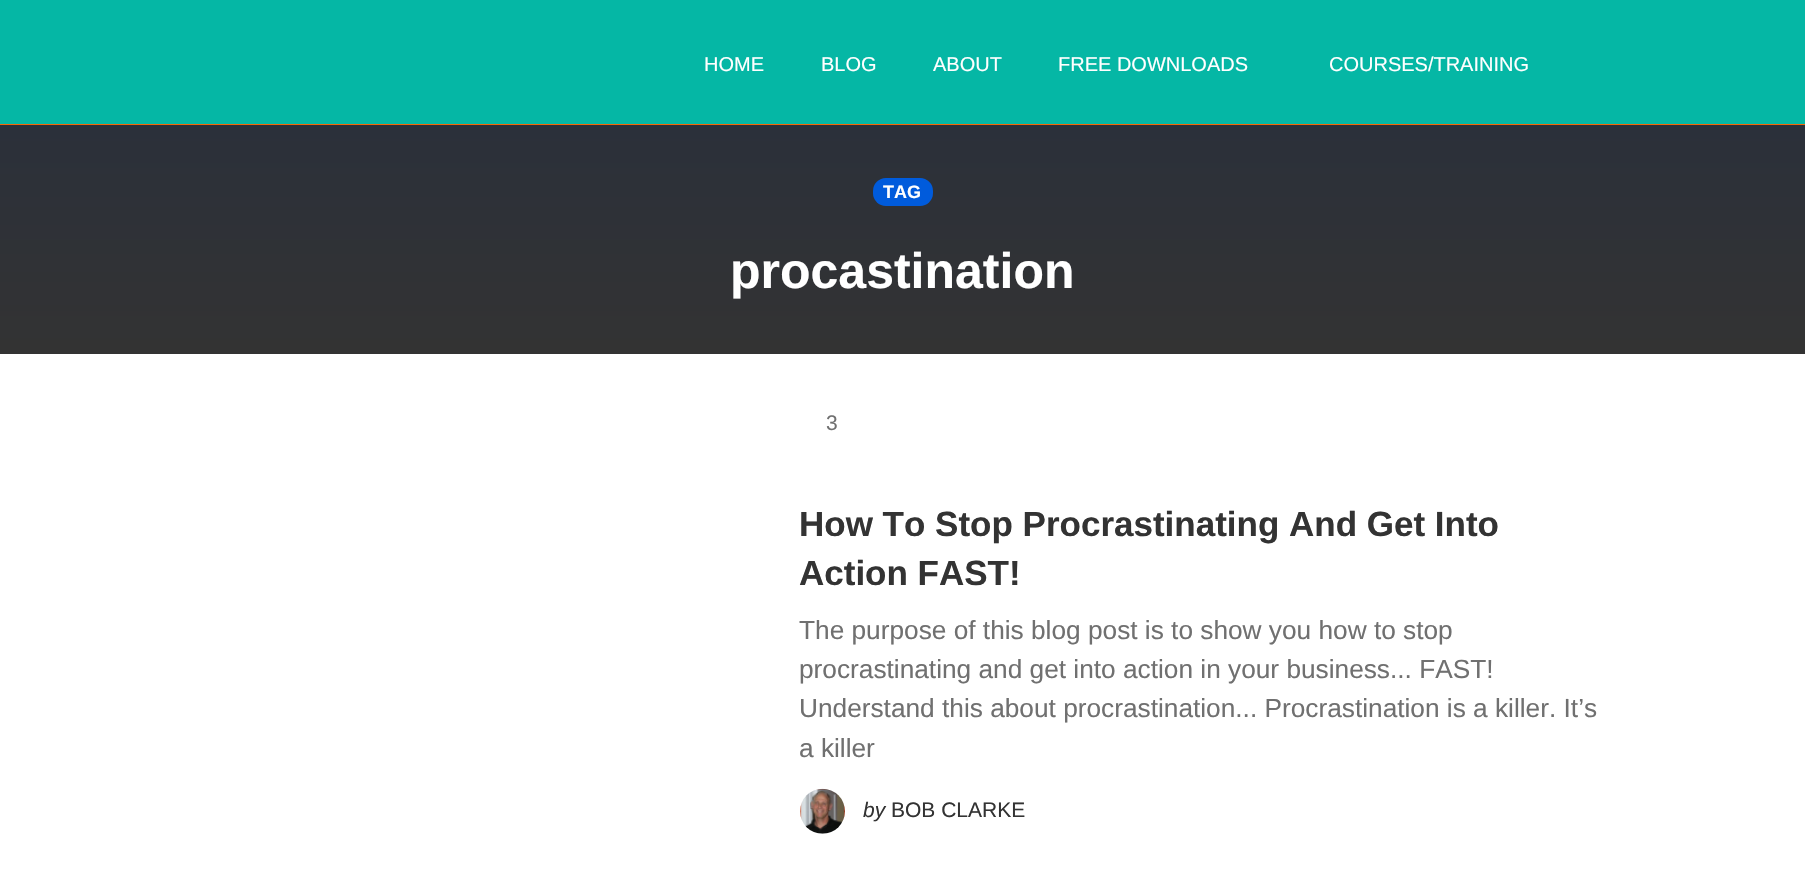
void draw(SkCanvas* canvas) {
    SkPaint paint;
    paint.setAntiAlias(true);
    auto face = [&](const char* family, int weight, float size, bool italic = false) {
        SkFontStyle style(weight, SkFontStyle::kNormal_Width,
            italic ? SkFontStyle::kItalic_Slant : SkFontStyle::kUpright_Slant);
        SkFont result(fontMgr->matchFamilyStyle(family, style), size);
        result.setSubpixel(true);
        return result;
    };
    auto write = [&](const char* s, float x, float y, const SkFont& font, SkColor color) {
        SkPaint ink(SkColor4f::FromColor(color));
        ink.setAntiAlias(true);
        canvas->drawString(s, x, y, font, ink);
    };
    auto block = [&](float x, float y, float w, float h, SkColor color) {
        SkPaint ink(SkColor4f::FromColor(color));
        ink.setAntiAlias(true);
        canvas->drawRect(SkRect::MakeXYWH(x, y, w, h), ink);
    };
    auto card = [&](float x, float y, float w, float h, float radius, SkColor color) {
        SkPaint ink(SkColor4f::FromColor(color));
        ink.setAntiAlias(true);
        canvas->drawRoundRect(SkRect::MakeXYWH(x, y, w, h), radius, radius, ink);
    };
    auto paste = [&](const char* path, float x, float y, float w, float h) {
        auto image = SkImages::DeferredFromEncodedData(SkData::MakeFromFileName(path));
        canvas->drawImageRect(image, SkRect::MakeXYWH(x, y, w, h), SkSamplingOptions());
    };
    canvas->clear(SK_ColorWHITE);
    block(0, 0, 1805, 124, SkColorSetRGB(5, 183, 165));
    block(0, 124, 1805, 1, SkColorSetRGB(247, 103, 7));
    auto kFont1 = face("Liberation Sans", 400, 20);
    write("HOME", 704, 71, kFont1, SK_ColorWHITE);
    write("BLOG", 821, 71, kFont1, SK_ColorWHITE);
    write("ABOUT", 933, 71, kFont1, SK_ColorWHITE);
    write("FREE DOWNLOADS", 1058, 71, kFont1, SK_ColorWHITE);
    write("COURSES/TRAINING", 1329, 71, kFont1, SK_ColorWHITE);
    {
        const SkColor colors[] = {SkColorSetRGB(43, 48, 58), SkColorSetRGB(51, 51, 51)};
        const float stops[] = {0, 1};
        const SkPoint ends[] = {{903, 125}, {903, 354}};
        paint.setShader(SkGradientShader::MakeLinear(ends, colors, stops, 2, SkTileMode::kClamp));
        paint.setAlpha(255);
    }
    canvas->drawRect(SkRect::MakeXYWH(0, 125, 1805, 229), paint);
    card(873, 178, 60, 28, 13, SkColorSetRGB(0, 91, 220));
    auto kFont2 = face("Liberation Sans", 700, 18);
    write("TAG", 883, 198, kFont2, SK_ColorWHITE);
    auto kFont3 = face("Liberation Sans", 700, 50);
    write("procastination", 730, 288, kFont3, SK_ColorWHITE);
    auto kFont4 = face("Liberation Sans", 400, 21);
    write("3", 826, 430, kFont4, SkColorSetRGB(112, 112, 112));
    auto kFont5 = face("Liberation Sans", 700, 35);
    write("How To Stop Procrastinating And Get Into", 799, 536, kFont5, SkColorSetRGB(51, 51, 51));
    write("Action FAST!", 799, 585, kFont5, SkColorSetRGB(51, 51, 51));
    auto kFont6 = face("Liberation Sans", 400, 26.25f);
    write("The purpose of this blog post is to show you how to stop", 799, 639, kFont6, SkColorSetRGB(112, 112, 112));
    write("procrastinating and get into action in your business... FAST!", 799, 678, kFont6, SkColorSetRGB(112, 112, 112));
    write("Understand this about procrastination... Procrastination is a killer. It’s", 799, 717, kFont6, SkColorSetRGB(112, 112, 112));
    write("a killer", 799, 757, kFont6, SkColorSetRGB(112, 112, 112));
    paste("pic1.png", 800, 788, 45, 46);
    auto kFont7 = face("Liberation Sans", 400, 21, true);
    write("by", 863, 817, kFont7, SkColorSetRGB(51, 51, 51));
    write("BOB CLARKE", 891, 817, kFont4, SkColorSetRGB(51, 51, 51));
}
